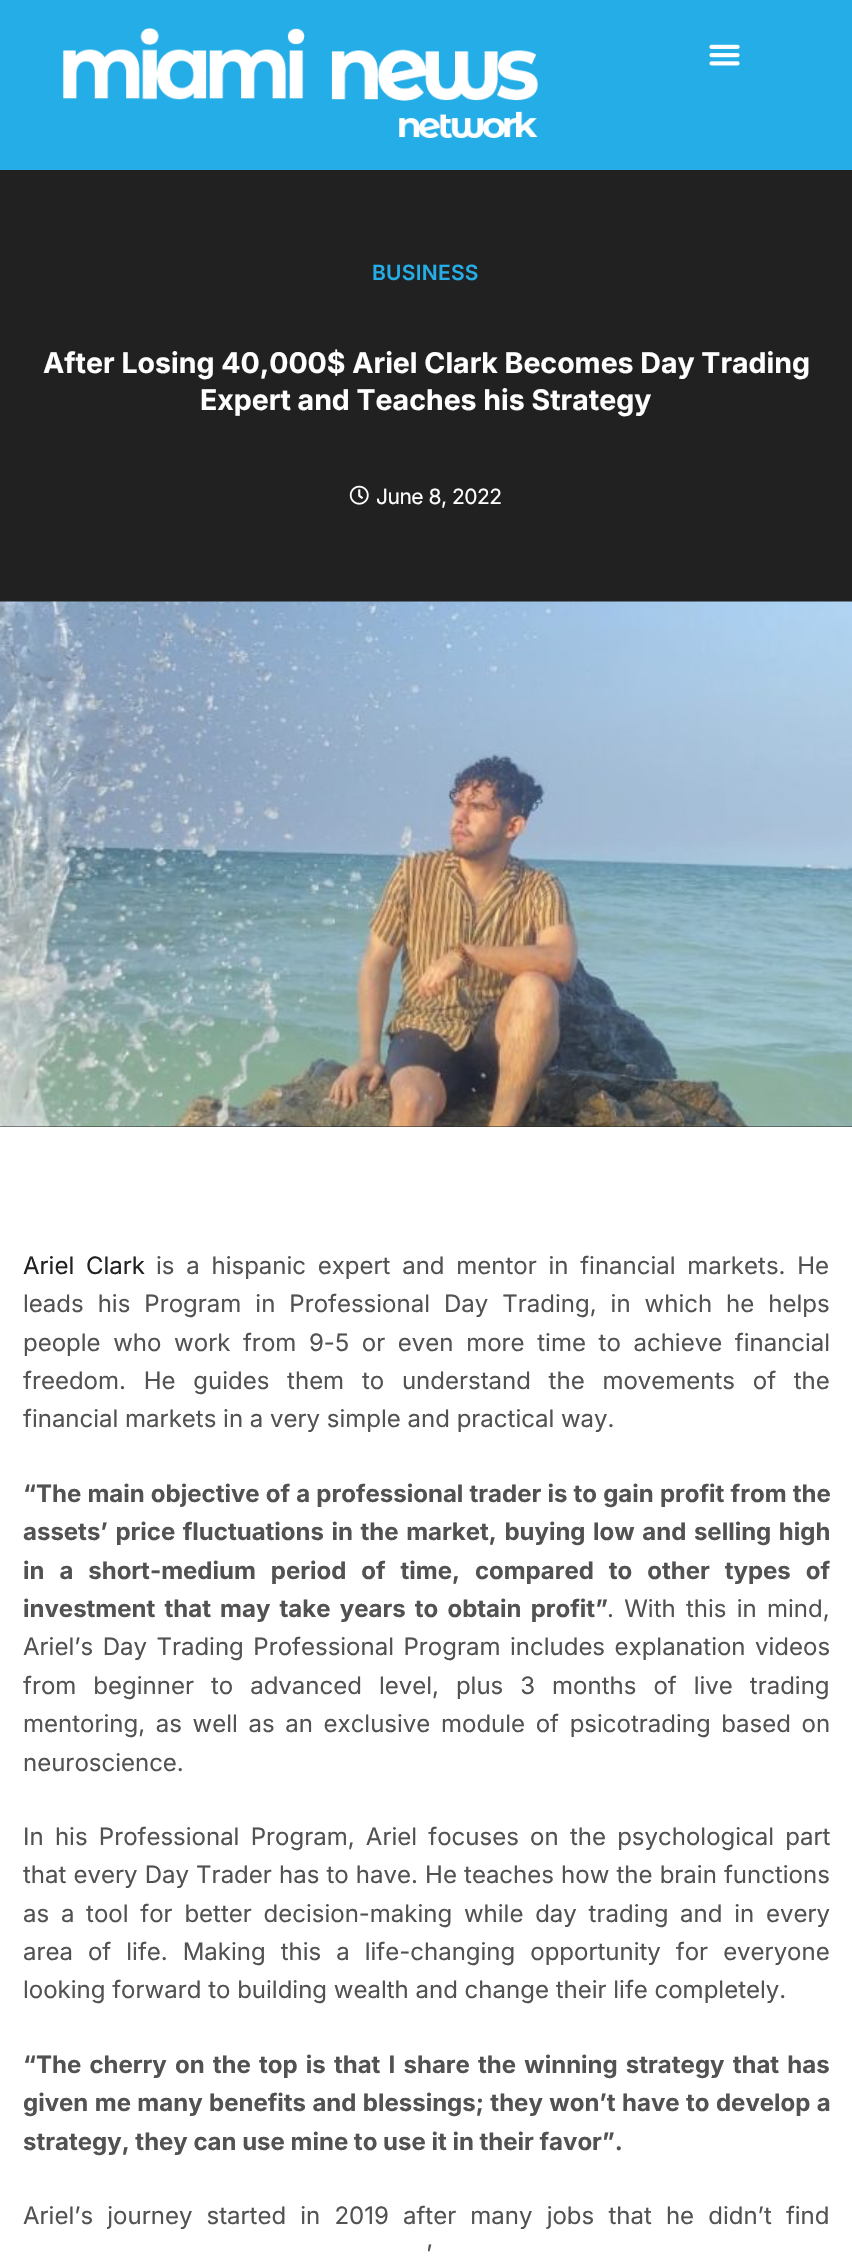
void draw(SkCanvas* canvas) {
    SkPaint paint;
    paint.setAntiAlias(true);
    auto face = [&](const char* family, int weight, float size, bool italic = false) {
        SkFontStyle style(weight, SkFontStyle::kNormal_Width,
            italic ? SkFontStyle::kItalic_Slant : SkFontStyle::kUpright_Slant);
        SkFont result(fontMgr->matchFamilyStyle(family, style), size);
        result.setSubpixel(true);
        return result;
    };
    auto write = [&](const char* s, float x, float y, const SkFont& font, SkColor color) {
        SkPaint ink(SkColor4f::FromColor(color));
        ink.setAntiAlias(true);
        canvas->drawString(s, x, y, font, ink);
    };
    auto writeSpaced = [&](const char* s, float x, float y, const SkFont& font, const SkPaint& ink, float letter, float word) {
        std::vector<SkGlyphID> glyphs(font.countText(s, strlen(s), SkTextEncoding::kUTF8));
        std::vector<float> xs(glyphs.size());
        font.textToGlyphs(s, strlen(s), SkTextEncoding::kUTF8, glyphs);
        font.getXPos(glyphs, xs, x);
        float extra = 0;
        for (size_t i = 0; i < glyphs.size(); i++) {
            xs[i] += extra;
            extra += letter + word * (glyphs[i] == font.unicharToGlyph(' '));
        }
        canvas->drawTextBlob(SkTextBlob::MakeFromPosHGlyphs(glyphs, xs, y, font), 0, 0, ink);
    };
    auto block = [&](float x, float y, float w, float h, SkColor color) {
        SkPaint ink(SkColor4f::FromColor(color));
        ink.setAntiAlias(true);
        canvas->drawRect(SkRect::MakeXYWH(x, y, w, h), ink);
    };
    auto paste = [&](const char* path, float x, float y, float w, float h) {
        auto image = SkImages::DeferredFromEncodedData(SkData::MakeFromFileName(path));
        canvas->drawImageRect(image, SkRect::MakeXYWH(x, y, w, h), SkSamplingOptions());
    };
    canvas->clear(SK_ColorWHITE);
    block(0, 0, 852, 170, SkColorSetRGB(36, 173, 230));
    paste("pic1.png", 63, 28, 475, 110);
    paste("pic2.png", 709, 44, 31, 22);
    block(0, 170, 852, 957, SkColorSetRGB(33, 33, 33));
    auto kFont1 = face("Inter", 600, 21);
    paint.setColor(SkColorSetRGB(36, 173, 230));
    writeSpaced("BUSINESS", 372, 280, kFont1, paint, 0.25f, 0);
    auto kFont2 = face("Inter", 700, 28.5f);
    write("After Losing 40,000$ Ariel Clark Becomes Day Trading", 43, 373, kFont2, SK_ColorWHITE);
    write("Expert and Teaches his Strategy", 200, 410, kFont2, SK_ColorWHITE);
    paste("pic3.png", 349, 485, 20, 20);
    auto kFont3 = face("Inter", 400, 21);
    paint.setColor(SK_ColorWHITE);
    writeSpaced("June 8, 2022", 376, 504, kFont3, paint, -0.5f, 0);
    paste("pic4.png", 0, 601, 852, 526);
    auto kFont4 = face("Inter", 400, 24);
    paint.setColor(SkColorSetRGB(33, 33, 33));
    writeSpaced("Ariel Clark", 23, 1274, kFont4, paint, 0, 5);
    paint.setColor(SkColorSetRGB(82, 82, 82));
    writeSpaced("is a hispanic expert and mentor in financial markets. He", 156, 1274, kFont4, paint, 0, 5);
    writeSpaced("leads his Program in Professional Day Trading, in which he helps", 23, 1312, kFont4, paint, 0, 7.25f);
    writeSpaced("people who work from 9-5 or even more time to achieve financial", 23, 1351, kFont4, paint, 0, 5.9f);
    writeSpaced("freedom. He guides them to understand the movements of the", 23, 1389, kFont4, paint, 0, 11);
    write("financial markets in a very simple and practical way.", 23, 1427, kFont4, SkColorSetRGB(82, 82, 82));
    auto kFont5 = face("Inter", 700, 24);
    writeSpaced("“The main objective of a professional trader is to gain profit from the", 23, 1502, kFont5, paint, 0, 0.5f);
    writeSpaced("assets’ price fluctuations in the market, buying low and selling high", 23, 1540, kFont5, paint, 0, 1.9f);
    writeSpaced("in a short-medium period of time, compared to other types of", 23, 1579, kFont5, paint, 0, 9.25f);
    writeSpaced("investment that may take years to obtain profit”", 23, 1617, kFont5, paint, 0, 3.5f);
    writeSpaced(". With this in mind,", 607, 1617, kFont4, paint, 0, 3.5f);
    writeSpaced("Ariel’s Day Trading Professional Program includes explanation videos", 23, 1655, kFont4, paint, 0, 2.75f);
    writeSpaced("from beginner to advanced level, plus 3 months of live trading", 23, 1694, kFont4, paint, 0, 10.25f);
    writeSpaced("mentoring, as well as an exclusive module of psicotrading based on", 23, 1732, kFont4, paint, 0, 3.9f);
    write("neuroscience.", 23, 1771, kFont4, SkColorSetRGB(82, 82, 82));
    writeSpaced("In his Professional Program, Ariel focuses on the psychological part", 23, 1845, kFont4, paint, 0, 4.5f);
    writeSpaced("that every Day Trader has to have. He teaches how the brain functions", 23, 1883, kFont4, paint, 0, 0.4f);
    writeSpaced("as a tool for better decision-making while day trading and in every", 23, 1922, kFont4, paint, 0, 5);
    writeSpaced("area of life. Making this a life-changing opportunity for everyone", 23, 1960, kFont4, paint, 0, 8.25f);
    write("looking forward to building wealth and change their life completely.", 23, 1998, kFont4, SkColorSetRGB(82, 82, 82));
    writeSpaced("“The cherry on the top is that I share the winning strategy that has", 23, 2073, kFont5, paint, 0, 2.5f);
    writeSpaced("given me many benefits and blessings; they won’t have to develop a", 23, 2111, kFont5, paint, 0, 0.75f);
    write("strategy, they can use mine to use it in their favor”.", 23, 2150, kFont5, SkColorSetRGB(82, 82, 82));
    writeSpaced("Ariel’s journey started in 2019 after many jobs that he didn’t find", 23, 2224, kFont4, paint, 0, 7.4f);
    writeSpaced("’", 426, 2262, kFont4, paint, 0, 1);
}
